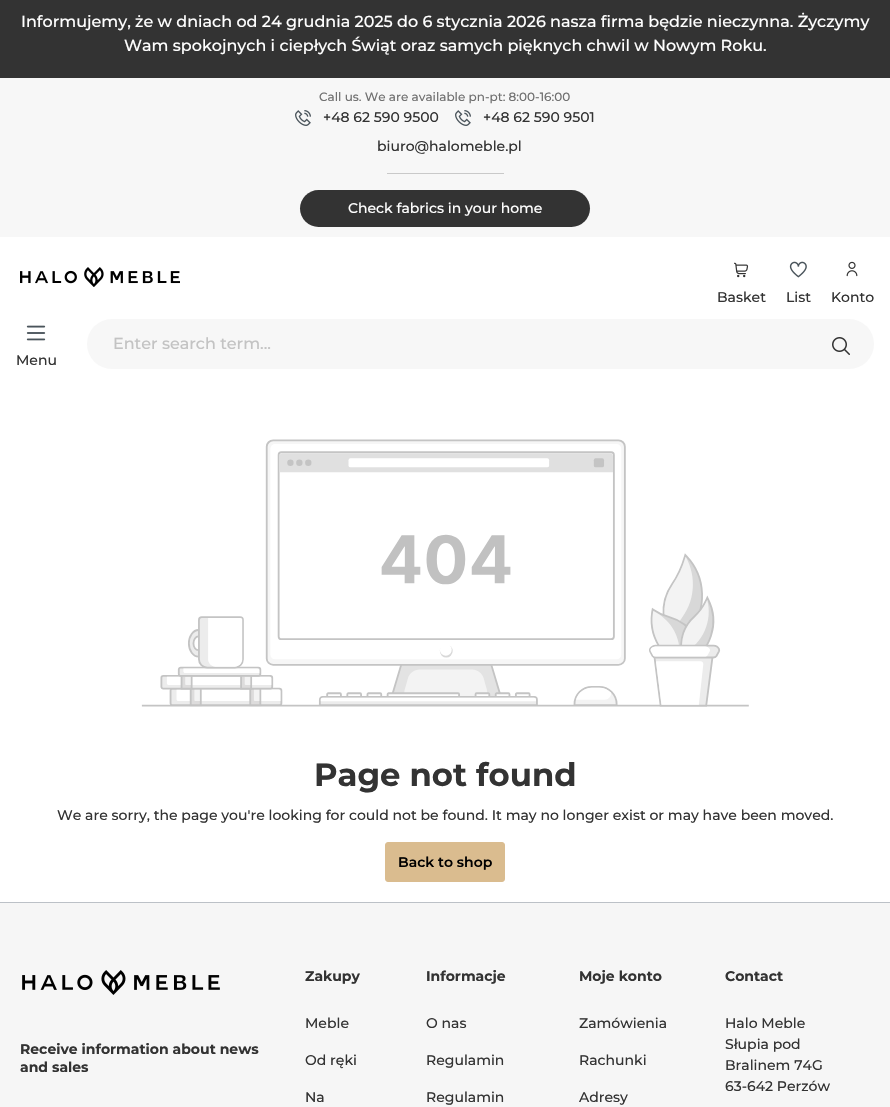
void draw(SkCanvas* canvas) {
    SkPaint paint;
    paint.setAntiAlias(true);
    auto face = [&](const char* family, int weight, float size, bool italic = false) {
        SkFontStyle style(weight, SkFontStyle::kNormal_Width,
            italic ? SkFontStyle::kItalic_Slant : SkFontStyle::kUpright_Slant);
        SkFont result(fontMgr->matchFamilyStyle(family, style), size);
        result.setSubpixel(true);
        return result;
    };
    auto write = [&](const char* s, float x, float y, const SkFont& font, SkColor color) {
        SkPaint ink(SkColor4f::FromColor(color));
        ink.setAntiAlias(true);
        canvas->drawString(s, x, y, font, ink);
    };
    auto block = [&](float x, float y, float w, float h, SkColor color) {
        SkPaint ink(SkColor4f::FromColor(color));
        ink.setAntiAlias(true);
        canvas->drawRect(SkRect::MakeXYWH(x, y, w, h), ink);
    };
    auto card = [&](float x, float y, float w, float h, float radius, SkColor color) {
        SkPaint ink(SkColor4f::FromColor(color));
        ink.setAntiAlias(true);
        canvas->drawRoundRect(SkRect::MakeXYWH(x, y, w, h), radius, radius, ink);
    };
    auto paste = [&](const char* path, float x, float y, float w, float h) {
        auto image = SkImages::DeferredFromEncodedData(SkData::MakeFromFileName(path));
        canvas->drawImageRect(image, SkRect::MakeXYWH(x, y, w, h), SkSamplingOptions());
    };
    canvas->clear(SK_ColorWHITE);
    block(0, 0, 890, 78, SkColorSetRGB(51, 51, 51));
    auto kFont1 = face("Montserrat", 500, 16);
    write("Informujemy, że w dniach od 24 grudnia 2025 do 6 stycznia 2026 nasza firma będzie nieczynna. Życzymy", 21, 27, kFont1, SK_ColorWHITE);
    write("Wam spokojnych i ciepłych Świąt oraz samych pięknych chwil w Nowym Roku.", 124, 51, kFont1, SK_ColorWHITE);
    block(0, 78, 890, 159, SkColorSetRGB(247, 247, 247));
    auto kFont2 = face("Montserrat", 500, 12);
    write("Call us. We are available pn-pt: 8:00-16:00", 319, 101, kFont2, SkColorSetRGB(112, 112, 112));
    paste("pic1.png", 295, 110, 16, 16);
    auto kFont3 = face("Montserrat", 500, 14);
    write("+48 62 590 9500", 323, 122, kFont3, SkColorSetRGB(51, 51, 51));
    paste("pic1.png", 455, 110, 16, 16);
    write("+48 62 590 9501", 483, 122, kFont3, SkColorSetRGB(51, 51, 51));
    write("biuro@halomeble.pl", 377, 151, kFont3, SkColorSetRGB(51, 51, 51));
    block(387, 173, 117, 1, SkColorSetRGB(201, 201, 201));
    card(300, 190, 290, 37, 18.5f, SkColorSetRGB(51, 51, 51));
    write("Check fabrics in your home", 348, 213, kFont3, SK_ColorWHITE);
    paste("pic2.png", 20, 267, 160, 20);
    paste("pic3.png", 734, 262, 15, 16);
    write("Basket", 717, 302, kFont3, SkColorSetRGB(51, 51, 51));
    paste("pic4.png", 789, 261, 18, 17);
    write("List", 786, 302, kFont3, SkColorSetRGB(51, 51, 51));
    paste("pic5.png", 846, 261, 12, 16);
    write("Konto", 831, 302, kFont3, SkColorSetRGB(51, 51, 51));
    card(87, 319, 787, 50, 25, SkColorSetRGB(247, 247, 247));
    write("Enter search term...", 113, 349, kFont1, SkColorSetRGB(195, 195, 195));
    paste("pic6.png", 832, 337, 18, 18);
    paste("pic7.png", 26, 325, 20, 16);
    write("Menu", 16, 365, kFont3, SkColorSetRGB(51, 51, 51));
    paste("pic8.png", 141, 439, 608, 268);
    auto kFont4 = face("Montserrat", 700, 32.25f);
    write("Page not found", 314, 786, kFont4, SkColorSetRGB(51, 51, 51));
    write("We are sorry, the page you're looking for could not be found. It may no longer exist or may have been moved.", 57, 820, kFont3, SkColorSetRGB(51, 51, 51));
    paint.setColor(SkColorSetRGB(218, 188, 143));
    canvas->drawRoundRect(SkRect::MakeXYWH(385.5f, 842.5f, 119, 39), 2.5f, 2.5f, paint);
    paint.setStyle(SkPaint::kStroke_Style);
    paint.setStrokeWidth(1);
    canvas->drawRoundRect(SkRect::MakeXYWH(385.5f, 842.5f, 119, 39), 2.5f, 2.5f, paint);
    auto kFont5 = face("Montserrat", 600, 14);
    write("Back to shop", 398, 867, kFont5, SK_ColorBLACK);
    block(0, 902, 890, 1, SkColorSetRGB(188, 193, 199));
    block(0, 903, 890, 204, SkColorSetRGB(246, 246, 246));
    paste("pic9.png", 22, 970, 198, 25);
    auto kFont6 = face("Montserrat", 700, 14);
    write("Receive information about news", 20, 1054, kFont6, SkColorSetRGB(51, 51, 51));
    write("and sales", 20, 1072, kFont6, SkColorSetRGB(51, 51, 51));
    write("Zakupy", 305, 981, kFont6, SkColorSetRGB(51, 51, 51));
    write("Meble", 305, 1028, kFont3, SkColorSetRGB(51, 51, 51));
    write("Od ręki", 305, 1065, kFont3, SkColorSetRGB(51, 51, 51));
    write("Na", 305, 1102, kFont3, SkColorSetRGB(51, 51, 51));
    write("Informacje", 426, 981, kFont6, SkColorSetRGB(51, 51, 51));
    write("O nas", 426, 1028, kFont3, SkColorSetRGB(51, 51, 51));
    write("Regulamin", 426, 1065, kFont3, SkColorSetRGB(51, 51, 51));
    write("Regulamin", 426, 1102, kFont3, SkColorSetRGB(51, 51, 51));
    write("Moje konto", 579, 981, kFont6, SkColorSetRGB(51, 51, 51));
    write("Zamówienia", 579, 1028, kFont3, SkColorSetRGB(51, 51, 51));
    write("Rachunki", 579, 1065, kFont3, SkColorSetRGB(51, 51, 51));
    write("Adresy", 579, 1102, kFont3, SkColorSetRGB(51, 51, 51));
    write("Contact", 725, 981, kFont6, SkColorSetRGB(51, 51, 51));
    write("Halo Meble", 725, 1028, kFont3, SkColorSetRGB(51, 51, 51));
    write("Słupia pod", 725, 1049, kFont3, SkColorSetRGB(51, 51, 51));
    write("Bralinem 74G", 725, 1070, kFont3, SkColorSetRGB(51, 51, 51));
    write("63-642 Perzów", 725, 1091, kFont3, SkColorSetRGB(51, 51, 51));
}
